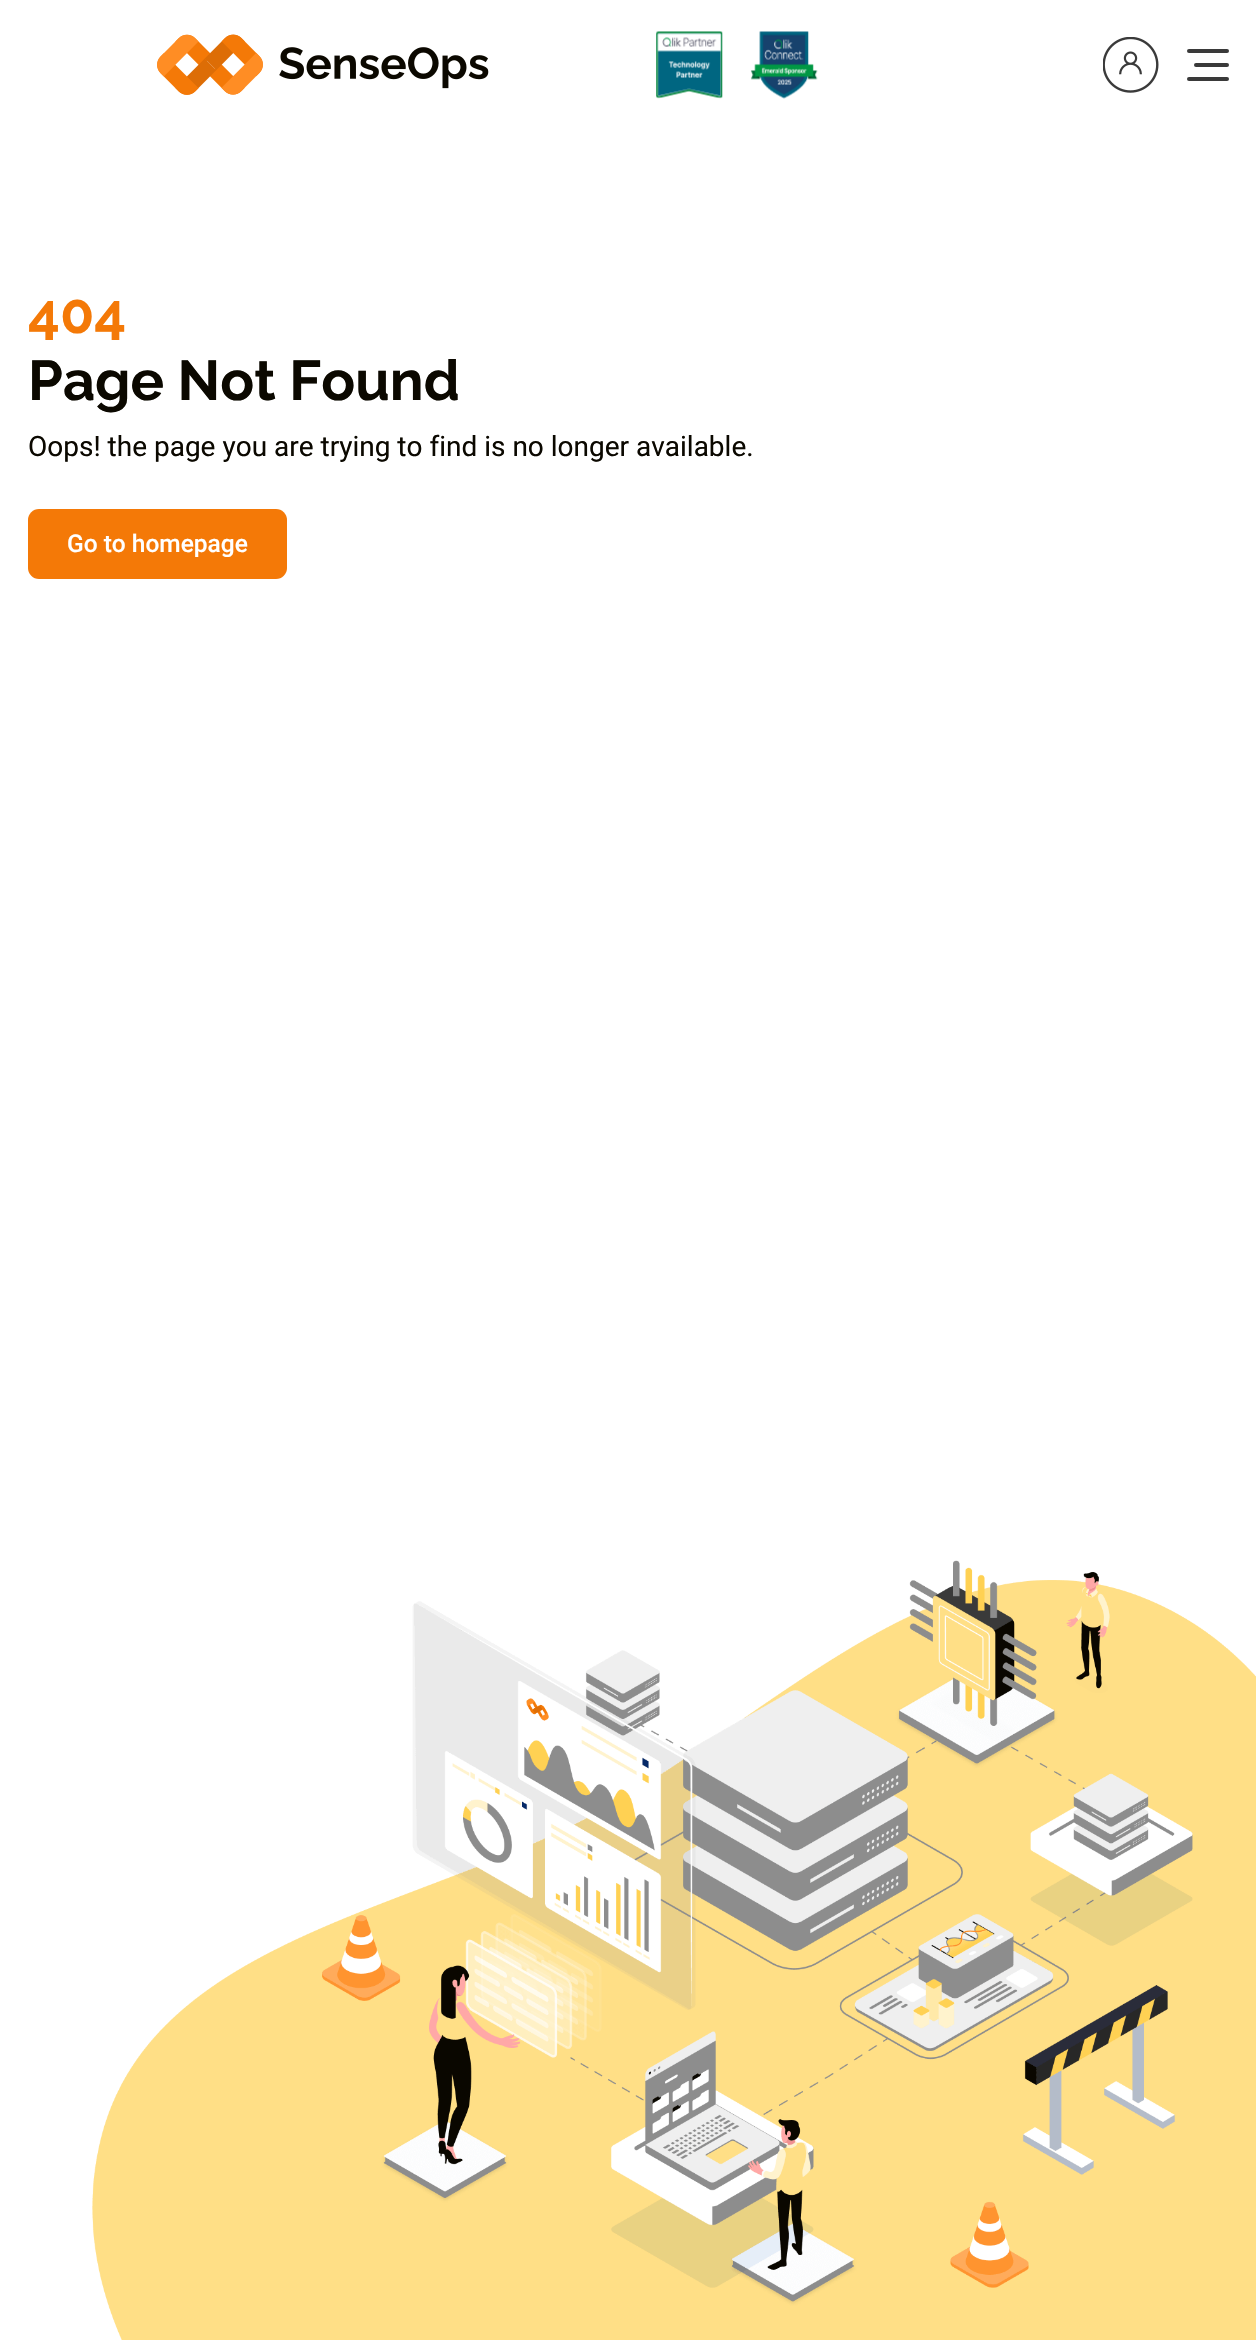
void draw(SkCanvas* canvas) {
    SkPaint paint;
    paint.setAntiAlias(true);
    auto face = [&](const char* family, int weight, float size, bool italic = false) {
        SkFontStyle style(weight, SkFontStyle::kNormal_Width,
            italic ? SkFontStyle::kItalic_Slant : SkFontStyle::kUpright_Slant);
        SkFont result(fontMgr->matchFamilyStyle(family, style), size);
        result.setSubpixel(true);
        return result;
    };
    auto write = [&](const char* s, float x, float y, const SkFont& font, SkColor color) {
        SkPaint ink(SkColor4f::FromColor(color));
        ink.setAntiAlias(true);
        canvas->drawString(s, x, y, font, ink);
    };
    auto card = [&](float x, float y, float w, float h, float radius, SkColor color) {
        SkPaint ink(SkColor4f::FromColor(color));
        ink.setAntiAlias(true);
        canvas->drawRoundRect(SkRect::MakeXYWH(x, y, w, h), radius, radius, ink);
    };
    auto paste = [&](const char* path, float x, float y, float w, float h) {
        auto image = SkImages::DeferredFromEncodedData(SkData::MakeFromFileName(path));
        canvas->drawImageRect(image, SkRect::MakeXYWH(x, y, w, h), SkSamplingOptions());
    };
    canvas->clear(SK_ColorWHITE);
    paste("pic1.png", 157, 34, 332, 61);
    paste("pic2.png", 656, 31, 67, 68);
    paste("pic3.png", 750, 31, 68, 68);
    paste("pic4.png", 1103, 37, 56, 56);
    card(1187, 49, 42, 4, 2, SkColorSetRGB(58, 58, 58));
    card(1194, 63, 35, 4, 2, SkColorSetRGB(58, 58, 58));
    card(1187, 77, 42, 4, 2, SkColorSetRGB(58, 58, 58));
    auto kFont1 = face("Raleway", 100, 56);
    write("404", 28, 333, kFont1, SkColorSetRGB(244, 121, 7));
    write("Page Not Found", 28, 400, kFont1, SkColorSetRGB(11, 8, 0));
    auto kFont2 = face("Roboto", 400, 28);
    write("Oops! the page you are trying to find is no longer available.", 28, 456, kFont2, SkColorSetRGB(11, 8, 0));
    card(28, 509, 259, 70, 11, SkColorSetRGB(244, 121, 7));
    auto kFont3 = face("Roboto", 500, 24.5f);
    write("Go to homepage", 67, 552, kFont3, SK_ColorWHITE);
    paste("pic5.png", 92, 1560, 1164, 780);
}
